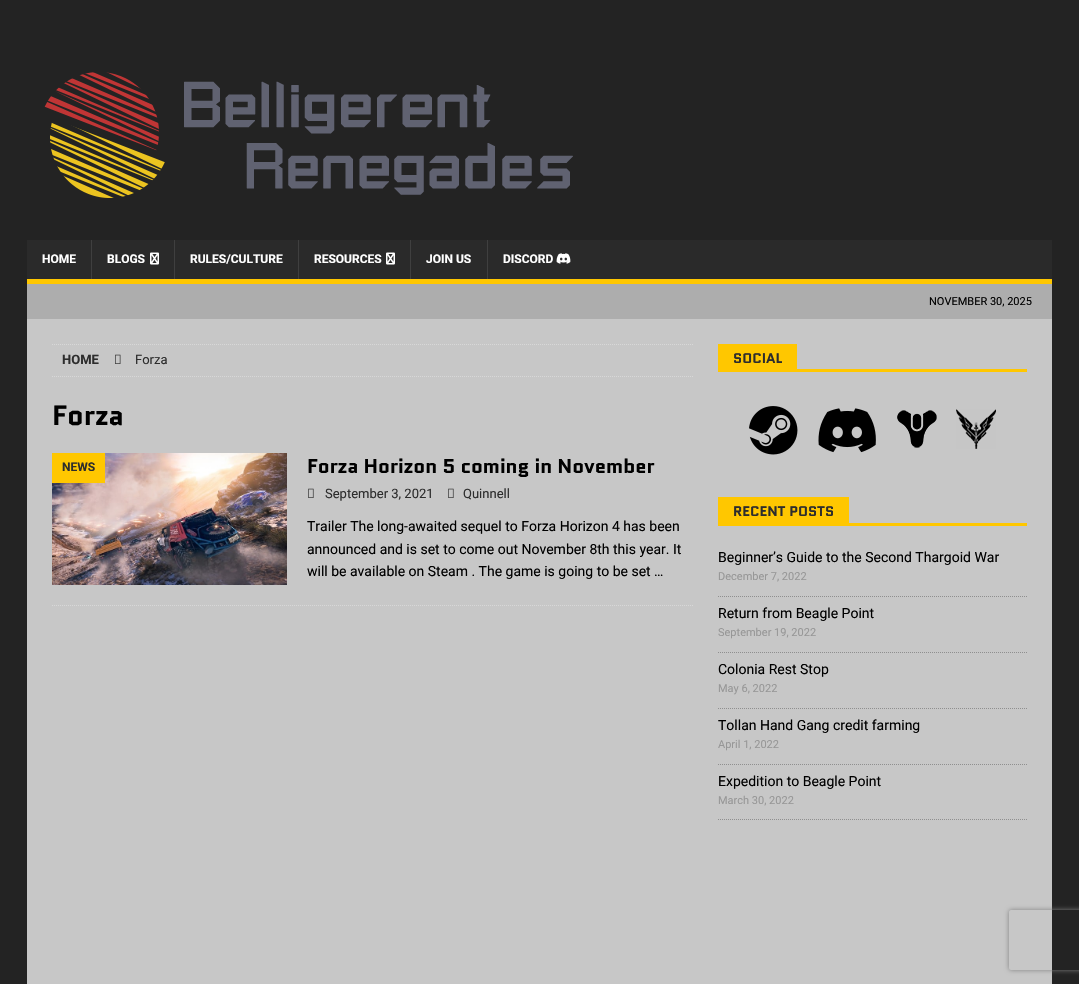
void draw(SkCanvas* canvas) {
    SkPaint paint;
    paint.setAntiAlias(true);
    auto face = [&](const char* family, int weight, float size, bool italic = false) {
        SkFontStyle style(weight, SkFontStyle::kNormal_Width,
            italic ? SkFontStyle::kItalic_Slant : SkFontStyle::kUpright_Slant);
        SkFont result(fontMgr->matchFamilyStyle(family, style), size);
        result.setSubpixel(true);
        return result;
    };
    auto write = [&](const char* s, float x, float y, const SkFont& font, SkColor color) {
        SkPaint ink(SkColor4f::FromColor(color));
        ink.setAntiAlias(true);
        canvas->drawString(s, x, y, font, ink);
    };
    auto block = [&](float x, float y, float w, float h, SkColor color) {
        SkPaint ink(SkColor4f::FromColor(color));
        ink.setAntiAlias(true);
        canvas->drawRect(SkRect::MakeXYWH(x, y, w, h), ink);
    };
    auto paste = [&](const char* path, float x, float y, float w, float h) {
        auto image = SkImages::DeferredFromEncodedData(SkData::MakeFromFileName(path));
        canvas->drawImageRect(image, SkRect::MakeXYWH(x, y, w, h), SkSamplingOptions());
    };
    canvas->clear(SkColorSetRGB(35, 35, 35));
    paste("pic1.png", 44, 72, 529, 126);
    block(27, 240, 1025, 39, SkColorSetRGB(42, 42, 42));
    block(27, 279, 1025, 5, SkColorSetRGB(255, 199, 0));
    auto kFont1 = face("Roboto", 700, 12);
    write("HOME", 42, 263, kFont1, SK_ColorWHITE);
    block(91, 240, 1, 39, SkColorSetRGB(63, 63, 63));
    write("BLOGS", 107, 263, kFont1, SK_ColorWHITE);
    paste("pic2.png", 150, 252, 9, 13);
    block(174, 240, 1, 39, SkColorSetRGB(63, 63, 63));
    write("RULES/CULTURE", 190, 263, kFont1, SK_ColorWHITE);
    block(298, 240, 1, 39, SkColorSetRGB(63, 63, 63));
    write("RESOURCES", 314, 263, kFont1, SK_ColorWHITE);
    paste("pic2.png", 386, 252, 9, 13);
    block(410, 240, 1, 39, SkColorSetRGB(63, 63, 63));
    write("JOIN US", 426, 263, kFont1, SK_ColorWHITE);
    block(487, 240, 1, 39, SkColorSetRGB(63, 63, 63));
    write("DISCORD", 503, 263, kFont1, SK_ColorWHITE);
    paste("pic3.png", 556, 253, 15, 11);
    block(27, 284, 1025, 35, SkColorSetRGB(173, 173, 173));
    auto kFont2 = face("Roboto", 400, 11);
    write("NOVEMBER 30, 2025", 929, 305, kFont2, SK_ColorBLACK);
    block(27, 319, 1025, 665, SkColorSetRGB(199, 199, 199));
    paint.setStyle(SkPaint::kStroke_Style);
    paint.setStrokeWidth(1);
    paint.setColor(SkColorSetRGB(216, 216, 216));
    paint.setPathEffect(SkDashPathEffect::Make({{1, 1}}, 0));
    canvas->drawPath(SkPathBuilder().moveTo(52, 344.5f).lineTo(694, 344.5f).detach(), paint);
    paint.setPathEffect(nullptr);
    paint.setPathEffect(SkDashPathEffect::Make({{1, 1}}, 0));
    canvas->drawPath(SkPathBuilder().moveTo(52, 376.5f).lineTo(694, 376.5f).detach(), paint);
    paint.setPathEffect(nullptr);
    auto kFont3 = face("Roboto", 700, 13);
    write("HOME", 62, 364, kFont3, SkColorSetRGB(45, 45, 45));
    paste("pic4.png", 115, 354, 6, 10);
    auto kFont4 = face("Roboto", 400, 13);
    write("Forza", 135, 364, kFont4, SkColorSetRGB(45, 45, 45));
    auto kFont5 = face("Quantico", 700, 28);
    write("Forza", 52, 425, kFont5, SK_ColorBLACK);
    paint.setPathEffect(SkDashPathEffect::Make({{1, 1}}, 0));
    canvas->drawPath(SkPathBuilder().moveTo(52, 605.5f).lineTo(694, 605.5f).detach(), paint);
    paint.setPathEffect(nullptr);
    paste("pic5.png", 52, 453, 235, 132);
    block(52, 453, 53, 30, SkColorSetRGB(255, 199, 0));
    write("NEWS", 62, 471, kFont1, SkColorSetRGB(45, 45, 45));
    auto kFont6 = face("Quantico", 700, 20);
    write("Forza Horizon 5 coming in November", 307, 473, kFont6, SK_ColorBLACK);
    paste("pic6.png", 308, 488, 6, 10);
    write("September 3, 2021", 325, 498, kFont4, SkColorSetRGB(45, 45, 45));
    paste("pic6.png", 448, 488, 6, 10);
    write("Quinnell", 463, 498, kFont4, SkColorSetRGB(45, 45, 45));
    auto kFont7 = face("Roboto", 400, 14);
    write("Trailer The long-awaited sequel to Forza Horizon 4 has been", 307, 531, kFont7, SK_ColorBLACK);
    write("announced and is set to come out November 8th this year. It", 307, 554, kFont7, SK_ColorBLACK);
    write("will be available on Steam . The game is going to be set …", 307, 576, kFont7, SK_ColorBLACK);
    block(718, 369, 309, 3, SkColorSetRGB(255, 199, 0));
    block(718, 344, 79, 25, SkColorSetRGB(255, 199, 0));
    auto kFont8 = face("Quantico", 700, 14);
    write("SOCIAL", 733, 363, kFont8, SkColorSetRGB(45, 45, 45));
    paste("pic7.png", 749, 406, 49, 49);
    paste("pic8.png", 818, 408, 58, 45);
    paste("pic9.png", 897, 410, 40, 38);
    paste("pic10.png", 956, 409, 40, 40);
    block(718, 523, 309, 3, SkColorSetRGB(255, 199, 0));
    block(718, 497, 131, 26, SkColorSetRGB(255, 199, 0));
    write("RECENT POSTS", 733, 516, kFont8, SkColorSetRGB(45, 45, 45));
    paint.setColor(SkColorSetRGB(143, 143, 143));
    paint.setPathEffect(SkDashPathEffect::Make({{1, 1}}, 0));
    canvas->drawPath(SkPathBuilder().moveTo(718, 596.5f).lineTo(1027, 596.5f).detach(), paint);
    paint.setPathEffect(nullptr);
    write("Beginner’s Guide to the Second Thargoid War", 718, 562, kFont7, SK_ColorBLACK);
    write("December 7, 2022", 718, 580, kFont2, SkColorSetRGB(151, 151, 151));
    paint.setPathEffect(SkDashPathEffect::Make({{1, 1}}, 0));
    canvas->drawPath(SkPathBuilder().moveTo(718, 652.5f).lineTo(1027, 652.5f).detach(), paint);
    paint.setPathEffect(nullptr);
    write("Return from Beagle Point", 718, 618, kFont7, SK_ColorBLACK);
    write("September 19, 2022", 718, 636, kFont2, SkColorSetRGB(151, 151, 151));
    paint.setPathEffect(SkDashPathEffect::Make({{1, 1}}, 0));
    canvas->drawPath(SkPathBuilder().moveTo(718, 708.5f).lineTo(1027, 708.5f).detach(), paint);
    paint.setPathEffect(nullptr);
    write("Colonia Rest Stop", 718, 674, kFont7, SK_ColorBLACK);
    write("May 6, 2022", 718, 692, kFont2, SkColorSetRGB(151, 151, 151));
    paint.setPathEffect(SkDashPathEffect::Make({{1, 1}}, 0));
    canvas->drawPath(SkPathBuilder().moveTo(718, 764.5f).lineTo(1027, 764.5f).detach(), paint);
    paint.setPathEffect(nullptr);
    write("Tollan Hand Gang credit farming", 718, 730, kFont7, SK_ColorBLACK);
    write("April 1, 2022", 718, 748, kFont2, SkColorSetRGB(151, 151, 151));
    paint.setPathEffect(SkDashPathEffect::Make({{1, 1}}, 0));
    canvas->drawPath(SkPathBuilder().moveTo(718, 819.5f).lineTo(1027, 819.5f).detach(), paint);
    paint.setPathEffect(nullptr);
    write("Expedition to Beagle Point", 718, 786, kFont7, SK_ColorBLACK);
    write("March 30, 2022", 718, 804, kFont2, SkColorSetRGB(151, 151, 151));
    canvas->save();
    canvas->clipPath(SkPathBuilder(SkPathFillType::kEvenOdd).moveTo(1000, 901).lineTo(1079, 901).lineTo(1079, 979).lineTo(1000, 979).close().moveTo(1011, 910).lineTo(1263, 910).cubicTo(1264, 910, 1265, 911, 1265, 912).lineTo(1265, 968).cubicTo(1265, 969, 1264, 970, 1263, 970).lineTo(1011, 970).cubicTo(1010, 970, 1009, 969, 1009, 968).lineTo(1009, 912).cubicTo(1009, 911, 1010, 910, 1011, 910).close().detach(), true);
    paint.setStyle(SkPaint::kFill_Style);
    paint.setColor(SkColorSetRGB(128, 128, 128));
    paint.setMaskFilter(SkMaskFilter::MakeBlur(kNormal_SkBlurStyle, 2.5f));
    canvas->drawRoundRect(SkRect::MakeXYWH(1009, 910, 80, 60), 2, 2, paint);
    paint.setMaskFilter(nullptr);
    canvas->restore();
}
